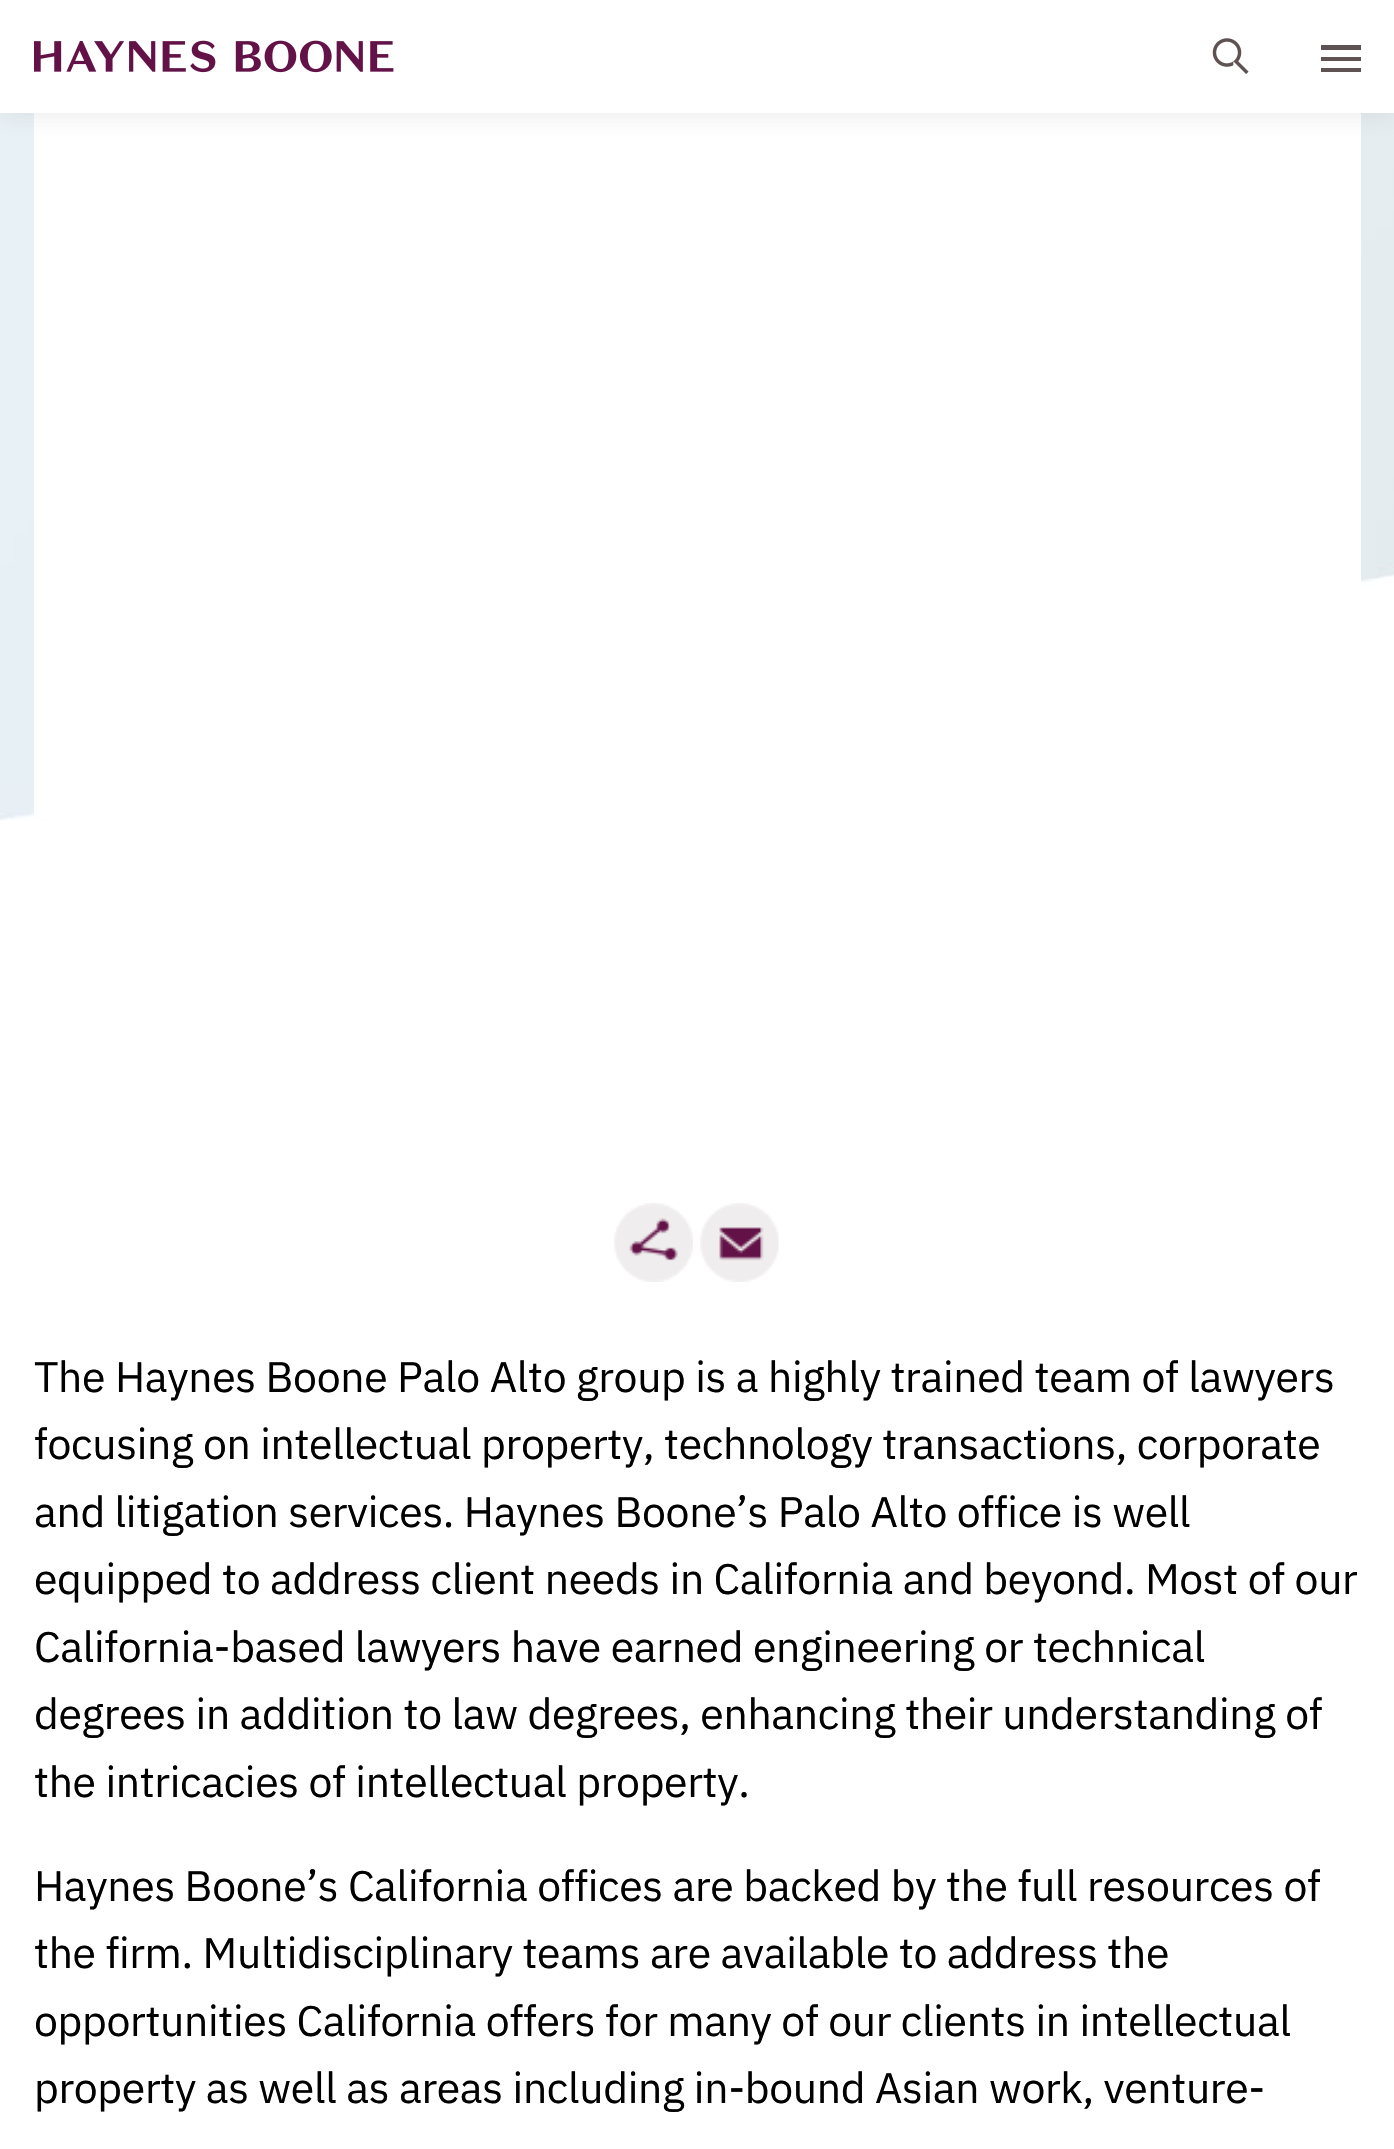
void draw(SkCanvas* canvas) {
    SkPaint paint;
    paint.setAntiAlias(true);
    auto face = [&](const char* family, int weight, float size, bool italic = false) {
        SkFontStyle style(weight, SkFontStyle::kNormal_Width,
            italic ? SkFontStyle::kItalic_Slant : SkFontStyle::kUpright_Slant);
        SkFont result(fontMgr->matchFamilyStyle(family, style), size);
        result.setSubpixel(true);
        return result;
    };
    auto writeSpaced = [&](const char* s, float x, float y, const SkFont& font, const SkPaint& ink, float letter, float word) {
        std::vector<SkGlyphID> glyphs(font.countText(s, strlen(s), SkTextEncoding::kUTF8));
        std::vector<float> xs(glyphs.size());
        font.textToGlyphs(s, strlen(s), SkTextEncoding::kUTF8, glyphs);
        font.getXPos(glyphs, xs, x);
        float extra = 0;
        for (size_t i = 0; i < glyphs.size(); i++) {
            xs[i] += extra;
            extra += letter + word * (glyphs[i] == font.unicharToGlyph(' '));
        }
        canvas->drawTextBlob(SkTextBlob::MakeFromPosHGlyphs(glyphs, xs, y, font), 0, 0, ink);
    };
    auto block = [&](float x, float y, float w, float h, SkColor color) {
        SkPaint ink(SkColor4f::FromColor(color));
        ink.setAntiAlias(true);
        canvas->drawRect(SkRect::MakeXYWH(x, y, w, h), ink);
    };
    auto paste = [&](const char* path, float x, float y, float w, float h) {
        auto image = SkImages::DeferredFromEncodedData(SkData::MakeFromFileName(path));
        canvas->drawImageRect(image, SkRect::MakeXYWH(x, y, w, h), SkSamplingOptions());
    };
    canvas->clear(SK_ColorWHITE);
    paste("pic3.png", 0, 113, 1394, 708);
    block(34, 113, 1327, 703, SK_ColorWHITE);
    paint.setColor(SkColorSetARGB(26, 95, 82, 82));
    paint.setMaskFilter(SkMaskFilter::MakeBlur(kNormal_SkBlurStyle, 11));
    canvas->drawRect(SkRect::MakeXYWH(0, 5, 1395, 112), paint);
    paint.setMaskFilter(nullptr);
    block(0, 0, 1394, 113, SK_ColorWHITE);
    paste("pic1.png", 34, 40, 360, 33);
    paste("pic2.png", 1212, 38, 37, 36);
    paint.setColor(SkColorSetRGB(95, 82, 82));
    canvas->drawPath(SkPathBuilder().moveTo(1321, 68).lineTo(1361, 68).lineTo(1361, 72).lineTo(1321, 72).close().moveTo(1321, 57).lineTo(1361, 57).lineTo(1361, 61).lineTo(1321, 61).close().moveTo(1321, 45).lineTo(1361, 45).lineTo(1361, 50).lineTo(1321, 50).close().detach(), paint);
    paste("pic4.png", 614, 1203, 79, 79);
    paste("pic5.png", 700, 1203, 79, 79);
    auto kFont1 = face("IBM Plex Sans", 400, 42.75f);
    paint.setColor(SK_ColorBLACK);
    writeSpaced("The Haynes Boone Palo Alto group is a highly trained team of lawyers", 34, 1392, kFont1, paint, -0.35f, 0);
    writeSpaced("focusing on intellectual property, technology transactions, corporate", 34, 1459, kFont1, paint, -0.35f, 0);
    writeSpaced("and litigation services. Haynes Boone’s Palo Alto office is well", 34, 1527, kFont1, paint, -0.35f, 0);
    writeSpaced("equipped to address client needs in California and beyond. Most of our", 34, 1594, kFont1, paint, -0.35f, 0);
    writeSpaced("California-based lawyers have earned engineering or technical", 34, 1662, kFont1, paint, -0.35f, 0);
    writeSpaced("degrees in addition to law degrees, enhancing their understanding of", 34, 1729, kFont1, paint, -0.35f, 0);
    writeSpaced("the intricacies of intellectual property.", 34, 1797, kFont1, paint, -0.35f, 0);
    writeSpaced("Haynes Boone’s California offices are backed by the full resources of", 34, 1901, kFont1, paint, -0.35f, 0);
    writeSpaced("the firm. Multidisciplinary teams are available to address the", 34, 1968, kFont1, paint, -0.35f, 0);
    writeSpaced("opportunities California offers for many of our clients in intellectual", 34, 2036, kFont1, paint, -0.35f, 0);
    writeSpaced("property as well as areas including in-bound Asian work, venture-", 34, 2103, kFont1, paint, -0.35f, 0);
}
